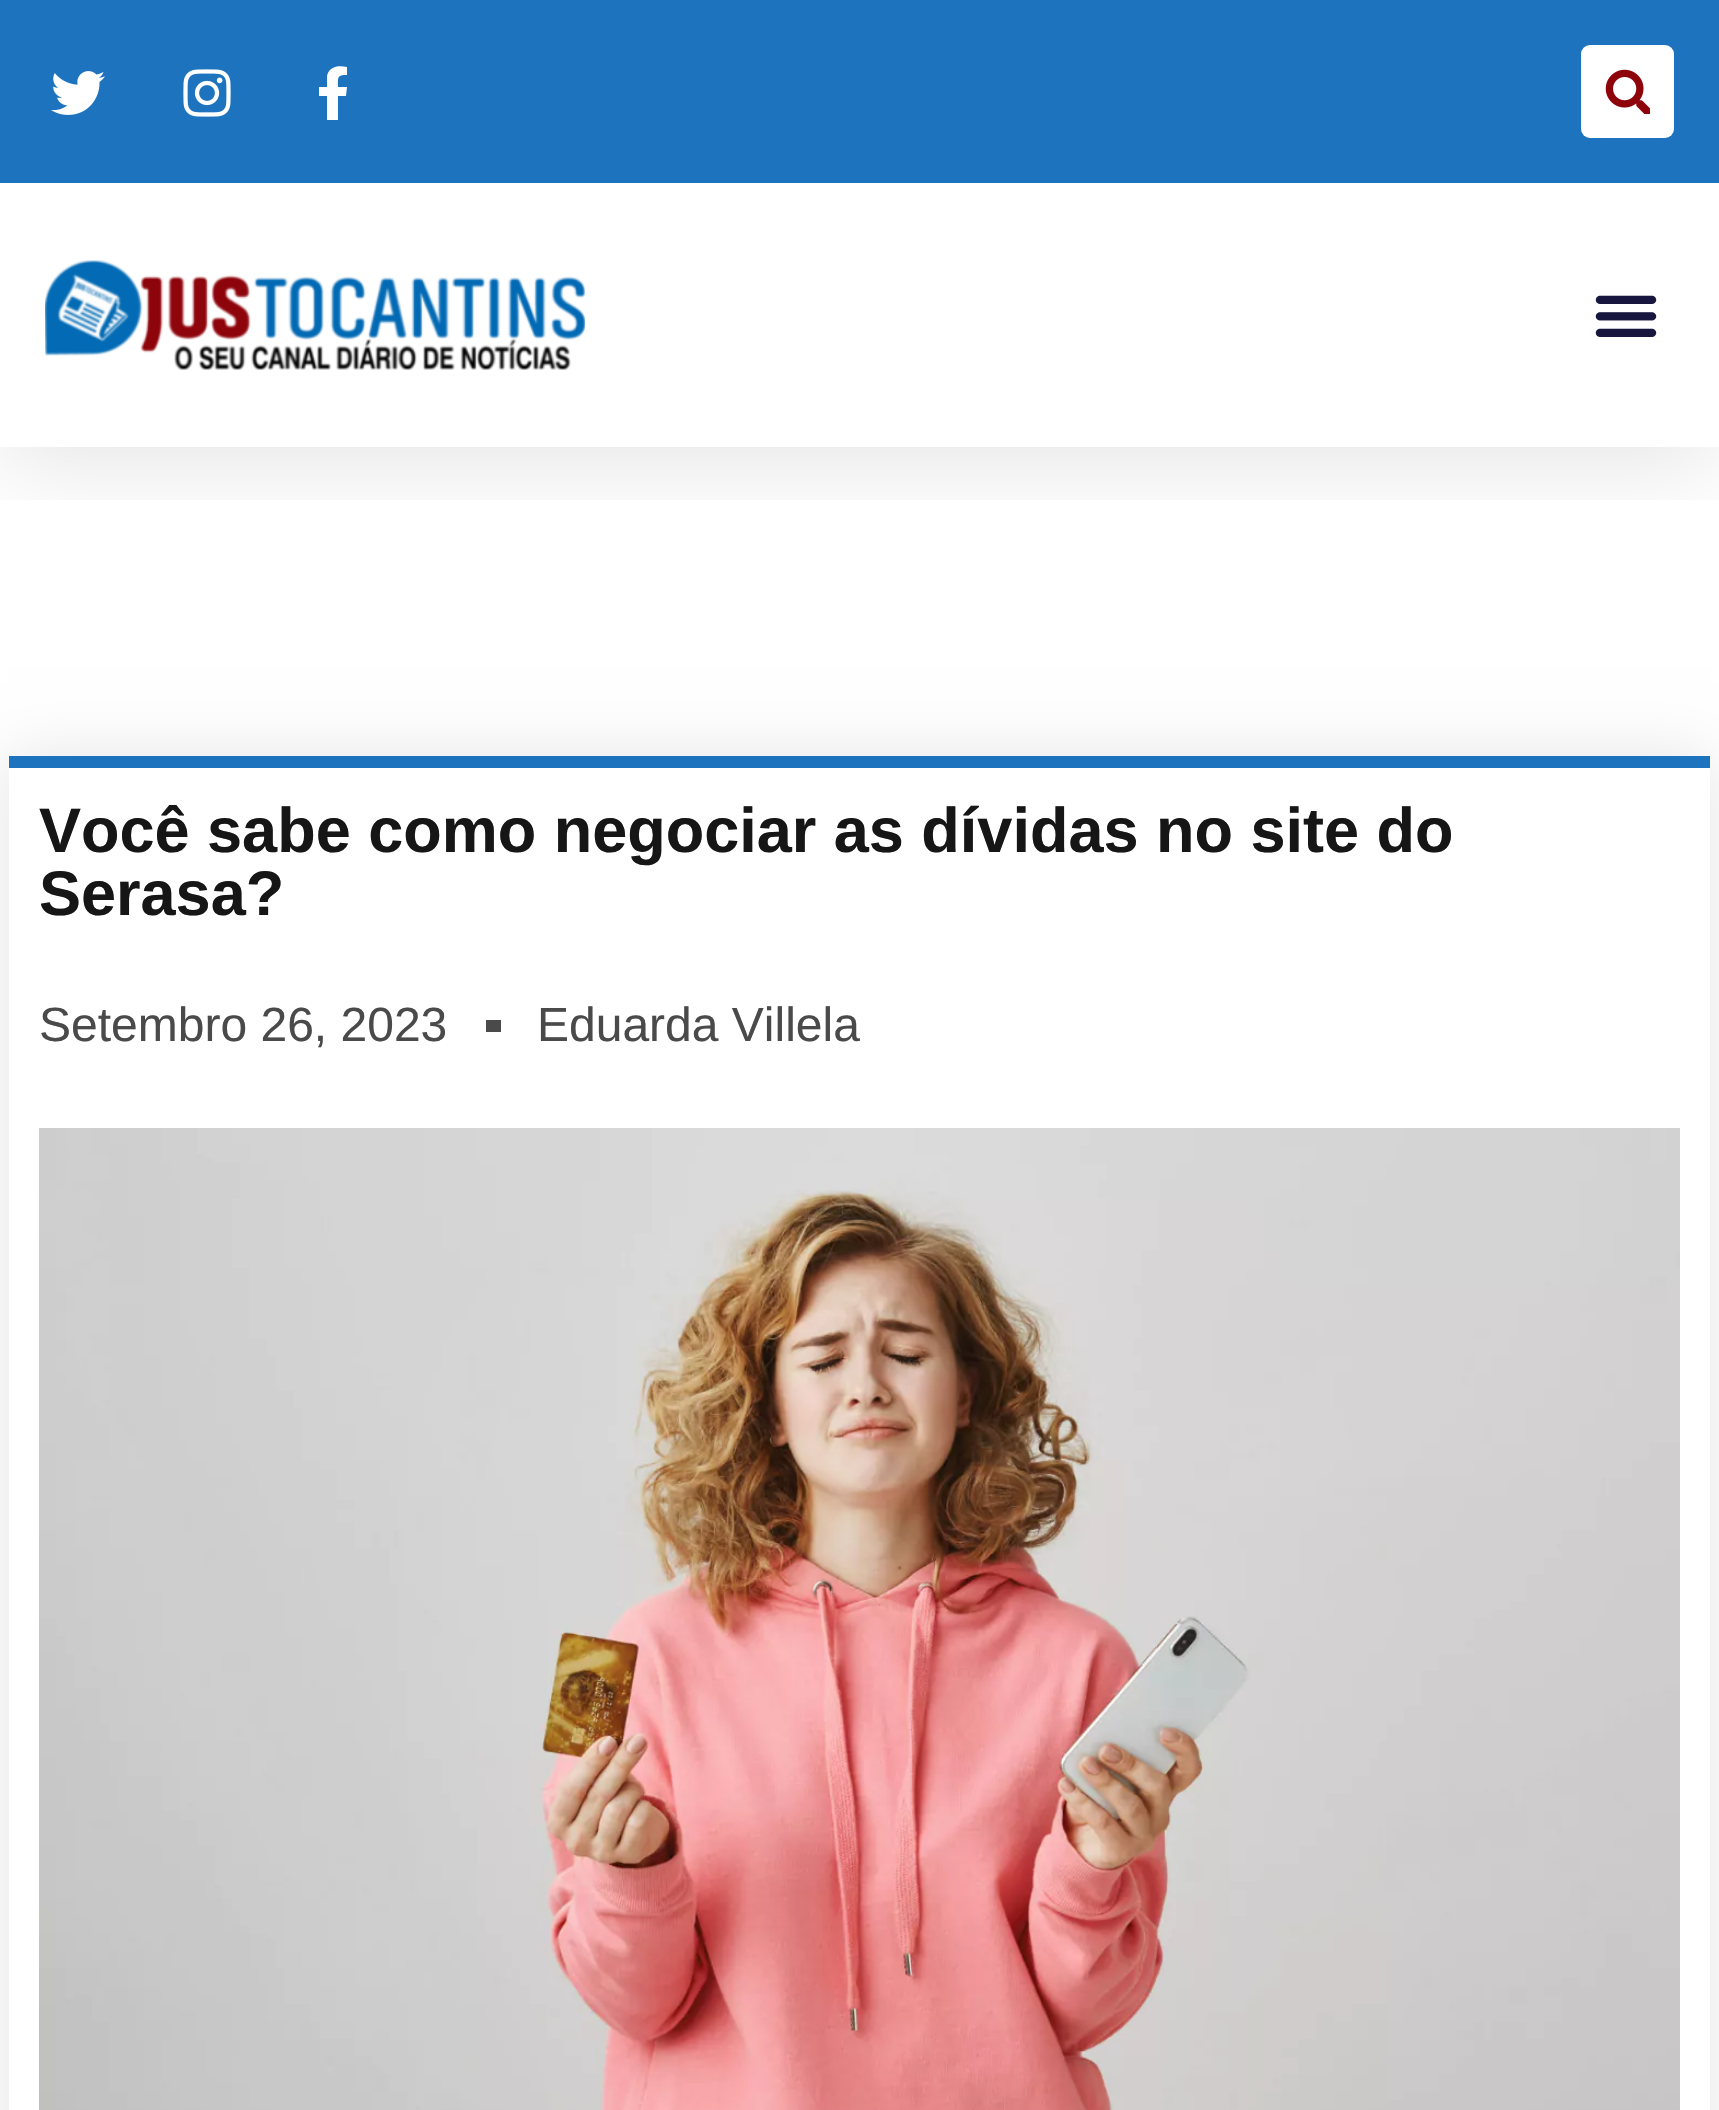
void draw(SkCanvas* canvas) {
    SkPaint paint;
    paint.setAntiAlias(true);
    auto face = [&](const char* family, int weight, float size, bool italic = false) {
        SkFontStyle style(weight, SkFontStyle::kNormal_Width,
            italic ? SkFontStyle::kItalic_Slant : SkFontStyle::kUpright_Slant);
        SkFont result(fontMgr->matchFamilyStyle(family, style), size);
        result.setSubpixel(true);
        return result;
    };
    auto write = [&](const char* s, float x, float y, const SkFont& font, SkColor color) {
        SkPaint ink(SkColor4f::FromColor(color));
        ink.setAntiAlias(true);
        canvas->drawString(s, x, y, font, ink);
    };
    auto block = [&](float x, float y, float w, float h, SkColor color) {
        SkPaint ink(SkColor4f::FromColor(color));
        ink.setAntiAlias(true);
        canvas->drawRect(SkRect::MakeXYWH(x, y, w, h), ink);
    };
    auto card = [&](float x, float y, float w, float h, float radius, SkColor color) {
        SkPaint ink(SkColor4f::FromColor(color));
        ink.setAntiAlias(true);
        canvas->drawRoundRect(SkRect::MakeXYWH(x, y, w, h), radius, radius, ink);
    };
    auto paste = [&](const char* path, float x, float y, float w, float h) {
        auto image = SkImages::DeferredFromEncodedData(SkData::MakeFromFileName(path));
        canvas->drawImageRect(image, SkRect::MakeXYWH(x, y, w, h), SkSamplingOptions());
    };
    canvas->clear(SK_ColorWHITE);
    canvas->save();
    canvas->clipRect(SkRect::MakeXYWH(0, 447, 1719, 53));
    paint.setColor(SkColorSetARGB(26, 0, 0, 0));
    paint.setMaskFilter(SkMaskFilter::MakeBlur(kNormal_SkBlurStyle, 45));
    canvas->drawRect(SkRect::MakeXYWH(0, 15, 1719, 447), paint);
    paint.setMaskFilter(nullptr);
    canvas->restore();
    block(0, 0, 1719, 183, SkColorSetRGB(30, 115, 190));
    paste("pic1.png", 51, 71, 54, 44);
    paste("pic2.png", 183, 69, 48, 48);
    paint.setColor(SK_ColorWHITE);
    canvas->drawPath(SkPathBuilder().moveTo(346, 96).lineTo(347, 87).lineTo(338, 87).cubicTo(338, 77, 337, 75, 347, 75).lineTo(347, 67).cubicTo(339, 65, 329, 66, 327, 76).lineTo(327, 87).lineTo(319, 87).lineTo(319, 96).lineTo(327, 96).lineTo(327, 120).lineTo(338, 120).lineTo(338, 96).close().detach(), paint);
    card(1581, 45, 93, 93, 9, SK_ColorWHITE);
    paste("pic3.png", 1605, 69, 45, 45);
    paste("pic4.png", 45, 260, 540, 110);
    paste("pic5.png", 1595, 295, 62, 42);
    canvas->save();
    canvas->clipPath(SkPathBuilder(SkPathFillType::kEvenOdd).moveTo(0, 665).lineTo(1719, 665).lineTo(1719, 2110).lineTo(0, 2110).close().moveTo(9, 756).lineTo(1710, 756).lineTo(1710, 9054).lineTo(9, 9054).close().detach(), true);
    paint.setColor(SkColorSetARGB(26, 0, 0, 0));
    paint.setMaskFilter(SkMaskFilter::MakeBlur(kNormal_SkBlurStyle, 30));
    canvas->drawRect(SkRect::MakeXYWH(9, 756, 1701, 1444), paint);
    paint.setMaskFilter(nullptr);
    canvas->restore();
    block(9, 756, 1701, 12, SkColorSetRGB(30, 115, 190));
    auto kFont1 = face("Liberation Sans", 700, 63);
    write("Você sabe como negociar as dívidas no site do", 39, 852, kFont1, SkColorSetRGB(22, 22, 22));
    write("Serasa?", 39, 915, kFont1, SkColorSetRGB(22, 22, 22));
    auto kFont2 = face("Liberation Sans", 400, 48);
    write("Setembro 26, 2023", 39, 1041, kFont2, SkColorSetRGB(74, 74, 74));
    block(486, 1020, 15, 12, SkColorSetRGB(74, 74, 74));
    write("Eduarda Villela", 537, 1041, kFont2, SkColorSetRGB(74, 74, 74));
    paste("pic6.png", 39, 1128, 1641, 982);
}
